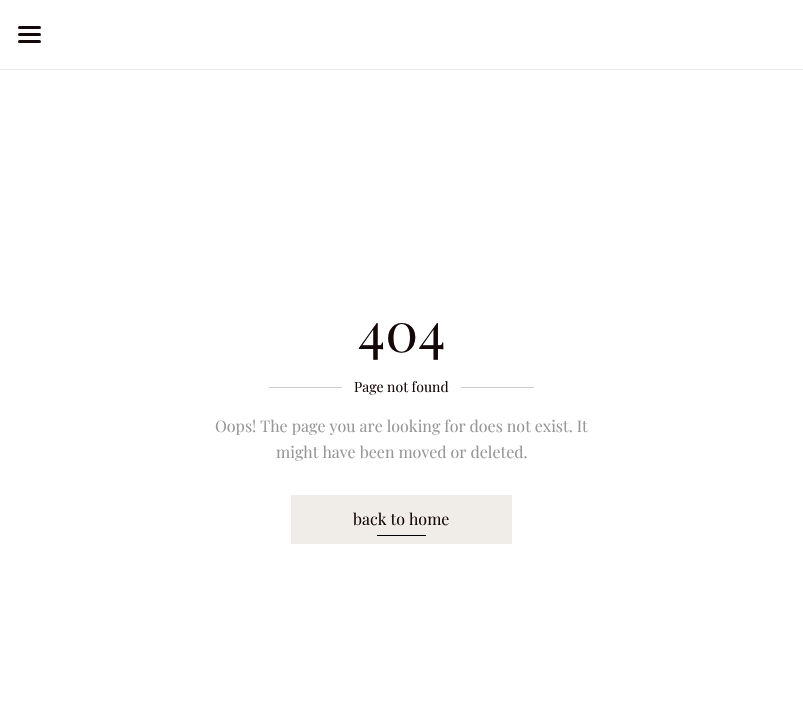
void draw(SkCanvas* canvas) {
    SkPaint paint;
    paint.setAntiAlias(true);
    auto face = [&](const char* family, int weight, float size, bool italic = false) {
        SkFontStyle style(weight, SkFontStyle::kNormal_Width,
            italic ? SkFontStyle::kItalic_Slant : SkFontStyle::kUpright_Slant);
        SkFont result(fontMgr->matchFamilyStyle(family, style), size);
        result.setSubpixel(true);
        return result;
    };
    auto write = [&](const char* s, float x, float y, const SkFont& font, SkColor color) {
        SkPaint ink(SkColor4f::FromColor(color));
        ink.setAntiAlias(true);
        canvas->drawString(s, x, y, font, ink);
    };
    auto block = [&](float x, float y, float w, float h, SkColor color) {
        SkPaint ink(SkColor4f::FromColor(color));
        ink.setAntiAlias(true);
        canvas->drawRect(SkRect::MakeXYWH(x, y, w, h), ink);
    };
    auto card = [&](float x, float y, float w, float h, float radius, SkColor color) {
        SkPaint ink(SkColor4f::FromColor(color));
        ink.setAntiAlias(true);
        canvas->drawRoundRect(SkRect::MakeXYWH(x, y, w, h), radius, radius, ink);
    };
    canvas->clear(SK_ColorWHITE);
    block(0, 69, 803, 1, SkColorSetRGB(235, 235, 235));
    card(18, 26, 23, 3, 1.5f, SkColorSetRGB(22, 8, 8));
    card(18, 33, 23, 3, 1.5f, SkColorSetRGB(22, 8, 8));
    card(18, 40, 23, 3, 1.5f, SkColorSetRGB(22, 8, 8));
    auto kFont1 = face("Playfair Display", 400, 55);
    write("404", 358, 352, kFont1, SkColorSetRGB(22, 8, 8));
    block(269, 387, 73, 1, SkColorSetRGB(204, 204, 204));
    auto kFont2 = face("Playfair Display", 400, 14);
    write("Page not found", 354, 392, kFont2, SkColorSetRGB(22, 8, 8));
    block(461, 387, 73, 1, SkColorSetRGB(204, 204, 204));
    auto kFont3 = face("Playfair Display", 400, 16);
    write("Oops! The page you are looking for does not exist. It", 215, 432, kFont3, SkColorSetRGB(151, 151, 151));
    write("might have been moved or deleted.", 276, 458, kFont3, SkColorSetRGB(151, 151, 151));
    block(291, 495, 221, 49, SkColorSetRGB(240, 237, 232));
    write("back to home", 353, 525, kFont3, SkColorSetRGB(22, 8, 8));
    block(377, 535, 49, 1, SK_ColorBLACK);
}
